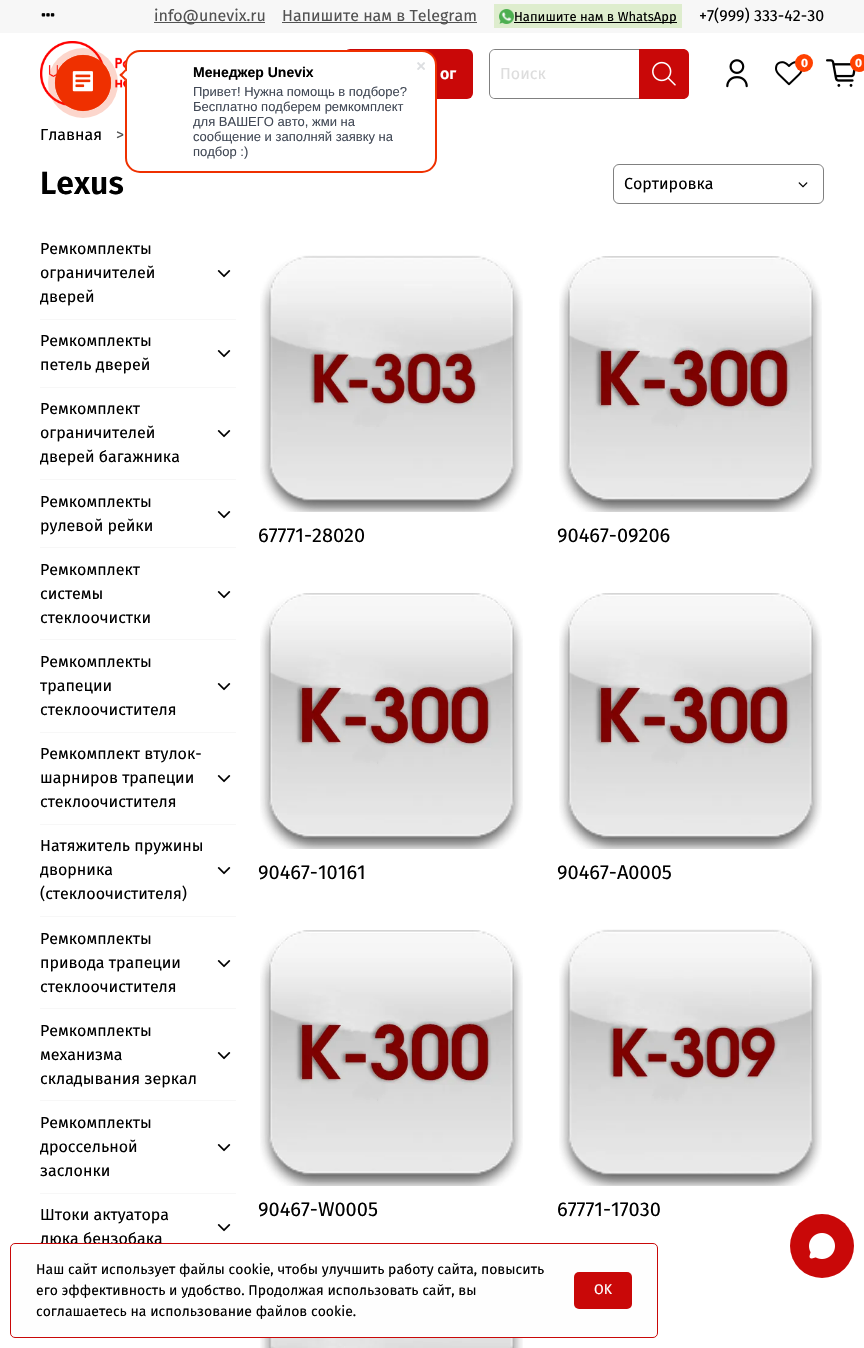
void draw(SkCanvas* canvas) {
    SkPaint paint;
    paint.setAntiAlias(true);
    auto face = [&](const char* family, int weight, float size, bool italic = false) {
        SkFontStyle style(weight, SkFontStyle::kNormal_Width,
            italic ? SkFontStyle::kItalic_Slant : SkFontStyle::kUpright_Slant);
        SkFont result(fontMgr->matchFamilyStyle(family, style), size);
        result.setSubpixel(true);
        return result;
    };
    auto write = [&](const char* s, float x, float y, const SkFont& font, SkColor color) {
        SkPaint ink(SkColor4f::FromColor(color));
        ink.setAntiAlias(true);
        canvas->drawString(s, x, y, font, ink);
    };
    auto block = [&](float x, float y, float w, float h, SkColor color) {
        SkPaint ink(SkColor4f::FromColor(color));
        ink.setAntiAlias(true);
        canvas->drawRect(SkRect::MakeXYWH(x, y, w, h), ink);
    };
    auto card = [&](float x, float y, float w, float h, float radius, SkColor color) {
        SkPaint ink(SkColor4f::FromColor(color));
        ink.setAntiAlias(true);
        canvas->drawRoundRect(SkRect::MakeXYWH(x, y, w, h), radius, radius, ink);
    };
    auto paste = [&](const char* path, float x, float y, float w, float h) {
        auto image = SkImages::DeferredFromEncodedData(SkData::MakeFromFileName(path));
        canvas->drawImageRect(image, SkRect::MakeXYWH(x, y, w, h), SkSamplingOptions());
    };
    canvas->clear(SK_ColorWHITE);
    block(0, 0, 864, 33, SkColorSetRGB(247, 247, 247));
    paste("pic1.png", 41, 13, 14, 4);
    block(154, 22, 111, 1, SkColorSetRGB(82, 82, 82));
    auto kFont1 = face("Fira Sans", 400, 16);
    write("info@unevix.ru", 154, 21, kFont1, SkColorSetRGB(82, 82, 82));
    block(282, 22, 195, 1, SkColorSetRGB(82, 82, 82));
    write("Напишите нам в Telegram", 282, 21, kFont1, SkColorSetRGB(82, 82, 82));
    block(494, 4, 188, 24, SkColorSetRGB(222, 237, 206));
    paste("pic2.png", 499, 9, 15, 15);
    block(514, 22, 163, 1, SK_ColorBLACK);
    auto kFont2 = face("Fira Sans", 400, 13);
    write("Напишите нам в WhatsApp", 514, 21, kFont2, SK_ColorBLACK);
    write("+7(999) 333-42-30", 699, 21, kFont1, SK_ColorBLACK);
    paste("pic3.png", 40, 41, 86, 65);
    paste("pic4.png", 726, 59, 22, 29);
    paste("pic5.png", 775, 61, 28, 25);
    paint.setColor(SkColorSetRGB(255, 65, 0));
    canvas->drawCircle(804, 63, 9, paint);
    auto kFont3 = face("Fira Sans", 700, 12);
    write("0", 801, 67, kFont3, SK_ColorWHITE);
    paste("pic6.png", 826, 59, 30, 28);
    canvas->drawCircle(859, 63, 9, paint);
    write("0", 855, 67, kFont3, SK_ColorWHITE);
    card(344, 49, 129, 50, 6, SkColorSetRGB(201, 8, 8));
    auto kFont4 = face("Fira Sans", 600, 16);
    write("ог", 440, 79, kFont4, SK_ColorWHITE);
    paint.setColor(SkColorSetRGB(128, 128, 128));
    canvas->drawPath(SkPathBuilder(SkPathFillType::kEvenOdd).moveTo(495, 49).lineTo(639, 49).lineTo(639, 99).lineTo(495, 99).cubicTo(492, 99, 489, 96, 489, 93).lineTo(489, 55).cubicTo(489, 52, 492, 49, 495, 49).close().moveTo(495, 50).lineTo(639, 50).lineTo(639, 98).lineTo(495, 98).cubicTo(492, 98, 490, 96, 490, 93).lineTo(490, 55).cubicTo(490, 52, 492, 50, 495, 50).close().detach(), paint);
    write("Поиск", 500, 79, kFont1, SkColorSetRGB(221, 221, 221));
    paint.setColor(SkColorSetRGB(201, 8, 8));
    canvas->drawPath(SkPathBuilder().moveTo(639, 49).lineTo(683, 49).cubicTo(686.5f, 49, 689, 51.5f, 689, 55).lineTo(689, 93).cubicTo(689, 96.5f, 686.5f, 99, 683, 99).lineTo(639, 99).close().detach(), paint);
    paste("pic7.png", 652, 61, 24, 25);
    write("люка бензобака", 40, 1244, kFont1, SK_ColorBLACK);
    paint.setColor(SkColorSetRGB(254, 254, 254));
    canvas->drawRoundRect(SkRect::MakeXYWH(10.5f, 1243.5f, 647, 94), 4.5f, 4.5f, paint);
    paint.setStyle(SkPaint::kStroke_Style);
    paint.setStrokeWidth(1);
    paint.setColor(SkColorSetRGB(201, 8, 8));
    canvas->drawRoundRect(SkRect::MakeXYWH(10.5f, 1243.5f, 647, 94), 4.5f, 4.5f, paint);
    auto kFont5 = face("Fira Sans", 400, 14);
    write("Наш сайт использует файлы cookie, чтобы улучшить работу сайта, повысить", 36, 1274, kFont5, SK_ColorBLACK);
    write("его эффективность и удобство. Продолжая использовать сайт, вы", 36, 1295, kFont5, SK_ColorBLACK);
    write("соглашаетесь на использование файлов cookie.", 36, 1316, kFont5, SK_ColorBLACK);
    card(574, 1272, 58, 37, 5, SkColorSetRGB(201, 8, 8));
    write("OK", 594, 1294, kFont5, SK_ColorWHITE);
    write("Главная", 40, 140, kFont1, SK_ColorBLACK);
    write(">", 116, 140, kFont1, SkColorSetRGB(82, 82, 82));
    auto kFont6 = face("Fira Sans", 600, 32);
    write("Lexus", 40, 194, kFont6, SK_ColorBLACK);
    paint.setColor(SkColorSetRGB(128, 128, 128));
    canvas->drawRoundRect(SkRect::MakeXYWH(613.5f, 164.5f, 210, 39), 5.5f, 5.5f, paint);
    write("Сортировка", 624, 189, kFont1, SK_ColorBLACK);
    paste("pic8.png", 798, 182, 10, 6);
    block(40, 319, 196, 1, SkColorSetRGB(247, 247, 247));
    write("Ремкомплекты", 40, 254, kFont1, SK_ColorBLACK);
    write("ограничителей", 40, 278, kFont1, SK_ColorBLACK);
    write("дверей", 40, 302, kFont1, SK_ColorBLACK);
    paste("pic9.png", 217, 270, 14, 8);
    block(40, 387, 196, 1, SkColorSetRGB(247, 247, 247));
    write("Ремкомплекты", 40, 346, kFont1, SK_ColorBLACK);
    write("петель дверей", 40, 370, kFont1, SK_ColorBLACK);
    paste("pic9.png", 217, 350, 14, 8);
    block(40, 479, 196, 1, SkColorSetRGB(247, 247, 247));
    write("Ремкомплект", 40, 414, kFont1, SK_ColorBLACK);
    write("ограничителей", 40, 438, kFont1, SK_ColorBLACK);
    write("дверей багажника", 40, 462, kFont1, SK_ColorBLACK);
    paste("pic9.png", 217, 430, 14, 8);
    block(40, 547, 196, 1, SkColorSetRGB(247, 247, 247));
    write("Ремкомплекты", 40, 507, kFont1, SK_ColorBLACK);
    write("рулевой рейки", 40, 531, kFont1, SK_ColorBLACK);
    paste("pic9.png", 217, 511, 14, 8);
    block(40, 639, 196, 1, SkColorSetRGB(247, 247, 247));
    write("Ремкомплект", 40, 575, kFont1, SK_ColorBLACK);
    write("системы", 40, 599, kFont1, SK_ColorBLACK);
    write("стеклоочистки", 40, 623, kFont1, SK_ColorBLACK);
    paste("pic9.png", 217, 591, 14, 8);
    block(40, 732, 196, 1, SkColorSetRGB(247, 247, 247));
    write("Ремкомплекты", 40, 667, kFont1, SK_ColorBLACK);
    write("трапеции", 40, 691, kFont1, SK_ColorBLACK);
    write("стеклоочистителя", 40, 715, kFont1, SK_ColorBLACK);
    paste("pic9.png", 217, 683, 14, 8);
    block(40, 824, 196, 1, SkColorSetRGB(247, 247, 247));
    write("Ремкомплект втулок-", 40, 759, kFont1, SK_ColorBLACK);
    write("шарниров трапеции", 40, 783, kFont1, SK_ColorBLACK);
    write("стеклоочистителя", 40, 807, kFont1, SK_ColorBLACK);
    paste("pic9.png", 217, 775, 14, 8);
    block(40, 916, 196, 1, SkColorSetRGB(247, 247, 247));
    write("Натяжитель пружины", 40, 851, kFont1, SK_ColorBLACK);
    write("дворника", 40, 875, kFont1, SK_ColorBLACK);
    write("(стеклоочистителя)", 40, 899, kFont1, SK_ColorBLACK);
    paste("pic9.png", 217, 867, 14, 8);
    block(40, 1008, 196, 1, SkColorSetRGB(247, 247, 247));
    write("Ремкомплекты", 40, 944, kFont1, SK_ColorBLACK);
    write("привода трапеции", 40, 968, kFont1, SK_ColorBLACK);
    write("стеклоочистителя", 40, 992, kFont1, SK_ColorBLACK);
    paste("pic9.png", 217, 960, 14, 8);
    block(40, 1100, 196, 1, SkColorSetRGB(247, 247, 247));
    write("Ремкомплекты", 40, 1036, kFont1, SK_ColorBLACK);
    write("механизма", 40, 1060, kFont1, SK_ColorBLACK);
    write("складывания зеркал", 40, 1084, kFont1, SK_ColorBLACK);
    paste("pic9.png", 217, 1052, 14, 8);
    block(40, 1193, 196, 1, SkColorSetRGB(247, 247, 247));
    write("Ремкомплекты", 40, 1128, kFont1, SK_ColorBLACK);
    write("дроссельной", 40, 1152, kFont1, SK_ColorBLACK);
    write("заслонки", 40, 1176, kFont1, SK_ColorBLACK);
    paste("pic9.png", 217, 1144, 14, 8);
    write("Штоки актуатора", 40, 1220, kFont1, SK_ColorBLACK);
    paste("pic9.png", 217, 1224, 14, 8);
    paste("pic10.png", 260, 255, 263, 257);
    auto kFont7 = face("Fira Sans", 400, 20);
    write("67771-28020", 258, 542, kFont7, SK_ColorBLACK);
    paste("pic11.png", 559, 256, 263, 256);
    write("90467-09206", 557, 542, kFont7, SK_ColorBLACK);
    paste("pic12.png", 260, 593, 263, 256);
    write("90467-10161", 258, 879, kFont7, SK_ColorBLACK);
    paste("pic11.png", 559, 593, 263, 256);
    write("90467-А0005", 557, 879, kFont7, SK_ColorBLACK);
    paste("pic12.png", 260, 930, 263, 256);
    write("90467-W0005", 258, 1216, kFont7, SK_ColorBLACK);
    paste("pic13.png", 559, 929, 263, 257);
    write("67771-17030", 557, 1216, kFont7, SK_ColorBLACK);
    paste("pic14.png", 260, 1338, 263, 10);
    paint.setStyle(SkPaint::kFill_Style);
    paint.setColor(SkColorSetARGB(51, 239, 48, 0));
    canvas->drawCircle(83, 83, 35, paint);
    paint.setStyle(SkPaint::kStroke_Style);
    paint.setStrokeWidth(0.8f);
    paint.setColor(SkColorSetRGB(239, 48, 0));
    canvas->drawCircle(83, 83, 27.6f, paint);
    paint.setStyle(SkPaint::kFill_Style);
    canvas->drawCircle(83, 83, 28, paint);
    paste("pic15.png", 72, 71, 21, 21);
    paint.setColor(SK_ColorWHITE);
    canvas->drawRoundRect(SkRect::MakeXYWH(126, 51, 310, 121), 14, 14, paint);
    paint.setStyle(SkPaint::kStroke_Style);
    paint.setStrokeWidth(2);
    paint.setColor(SkColorSetRGB(239, 48, 0));
    canvas->drawRoundRect(SkRect::MakeXYWH(126, 51, 310, 121), 14, 14, paint);
    paint.setStyle(SkPaint::kFill_Style);
    paint.setColor(SK_ColorWHITE);
    canvas->drawPath(SkPathBuilder().moveTo(130.5f, 75).lineTo(125, 80.5f).lineTo(119.5f, 75).lineTo(125, 69.5f).close().detach(), paint);
    paint.setColor(SkColorSetRGB(239, 48, 0));
    canvas->drawPath(SkPathBuilder().moveTo(126.5f, 79).lineTo(125, 80.5f).lineTo(119.5f, 75).lineTo(120.5f, 73.5f).close().detach(), paint);
    canvas->drawPath(SkPathBuilder().moveTo(126.5f, 70.5f).lineTo(121, 76.5f).lineTo(119.5f, 75).lineTo(125, 69.5f).close().detach(), paint);
    auto kFont8 = face("Liberation Sans", 700, 14);
    write("Менеджер Unevix", 193, 77, kFont8, SK_ColorBLACK);
    auto kFont9 = face("Liberation Sans", 400, 13);
    write("Привет! Нужна помощь в подборе?", 193, 96, kFont9, SkColorSetRGB(66, 73, 86));
    write("Бесплатно подберем ремкомплект", 193, 111, kFont9, SkColorSetRGB(66, 73, 86));
    write("для ВАШЕГО авто, жми на", 193, 126, kFont9, SkColorSetRGB(66, 73, 86));
    write("сообщение и заполняй заявку на", 193, 141, kFont9, SkColorSetRGB(66, 73, 86));
    write("подбор :)", 193, 156, kFont9, SkColorSetRGB(66, 73, 86));
    paste("pic16.png", 417, 62, 8, 8);
    paint.setColor(SkColorSetRGB(201, 8, 8));
    canvas->drawCircle(822, 1246, 32, paint);
    paste("pic17.png", 809, 1233, 26, 26);
}
